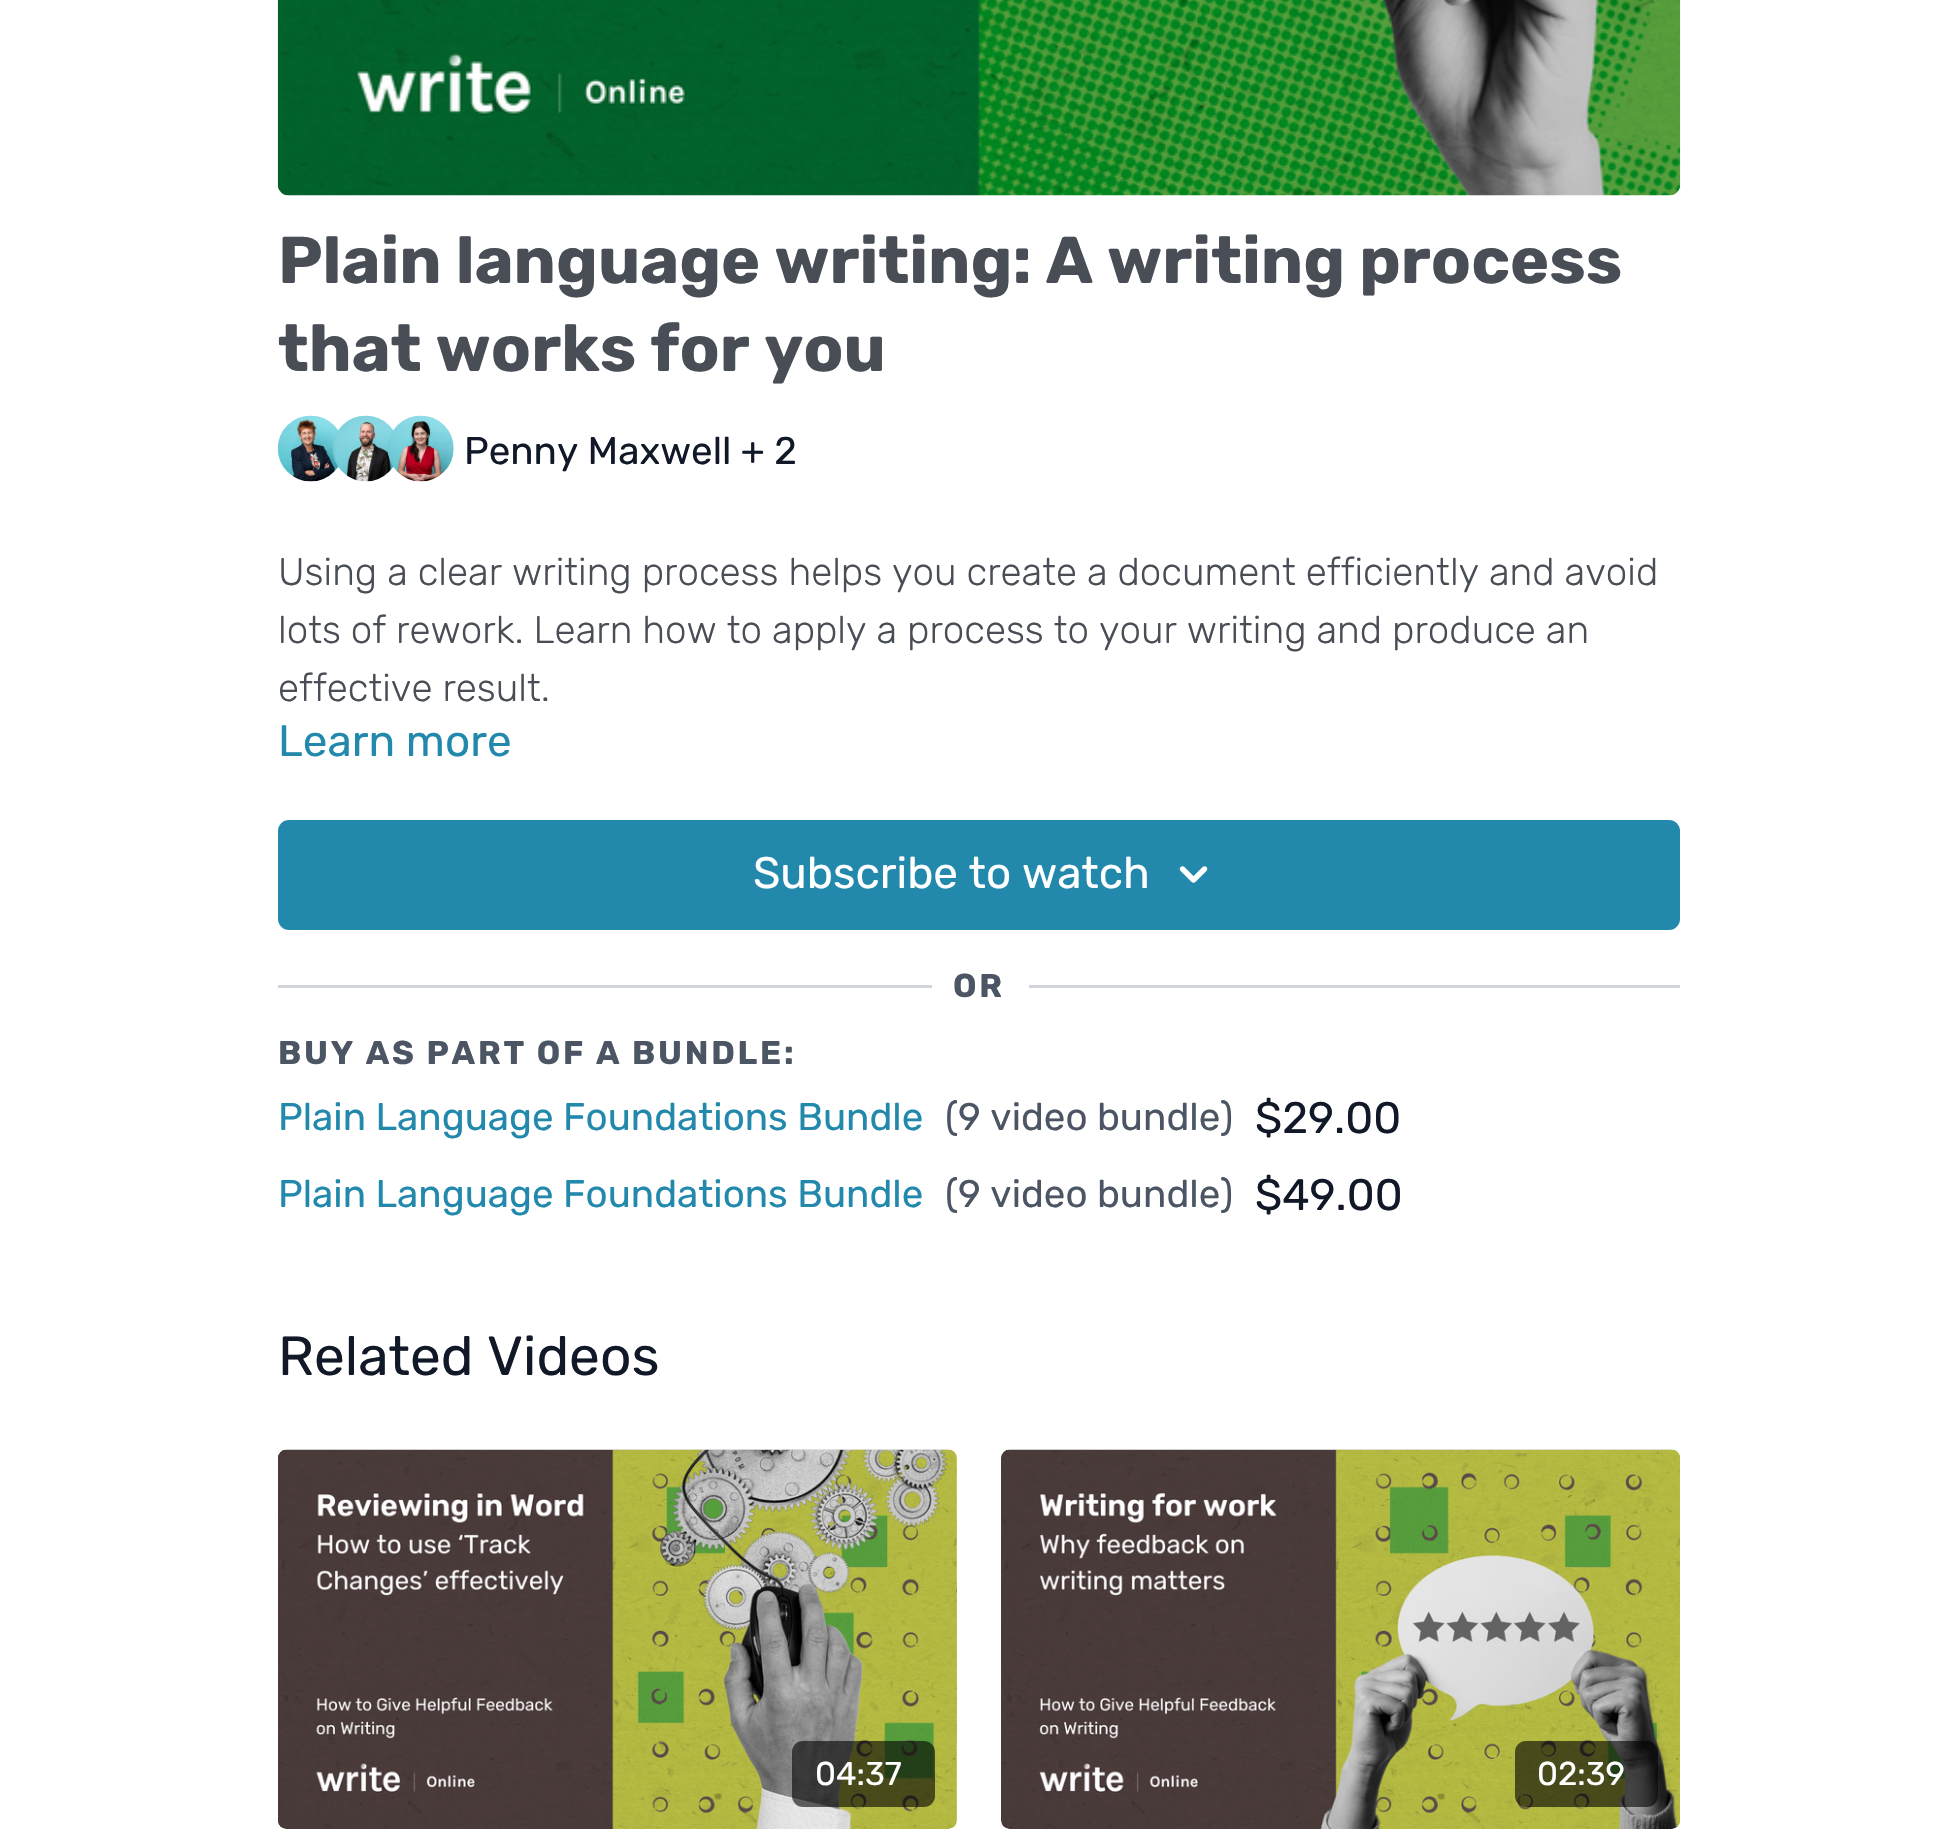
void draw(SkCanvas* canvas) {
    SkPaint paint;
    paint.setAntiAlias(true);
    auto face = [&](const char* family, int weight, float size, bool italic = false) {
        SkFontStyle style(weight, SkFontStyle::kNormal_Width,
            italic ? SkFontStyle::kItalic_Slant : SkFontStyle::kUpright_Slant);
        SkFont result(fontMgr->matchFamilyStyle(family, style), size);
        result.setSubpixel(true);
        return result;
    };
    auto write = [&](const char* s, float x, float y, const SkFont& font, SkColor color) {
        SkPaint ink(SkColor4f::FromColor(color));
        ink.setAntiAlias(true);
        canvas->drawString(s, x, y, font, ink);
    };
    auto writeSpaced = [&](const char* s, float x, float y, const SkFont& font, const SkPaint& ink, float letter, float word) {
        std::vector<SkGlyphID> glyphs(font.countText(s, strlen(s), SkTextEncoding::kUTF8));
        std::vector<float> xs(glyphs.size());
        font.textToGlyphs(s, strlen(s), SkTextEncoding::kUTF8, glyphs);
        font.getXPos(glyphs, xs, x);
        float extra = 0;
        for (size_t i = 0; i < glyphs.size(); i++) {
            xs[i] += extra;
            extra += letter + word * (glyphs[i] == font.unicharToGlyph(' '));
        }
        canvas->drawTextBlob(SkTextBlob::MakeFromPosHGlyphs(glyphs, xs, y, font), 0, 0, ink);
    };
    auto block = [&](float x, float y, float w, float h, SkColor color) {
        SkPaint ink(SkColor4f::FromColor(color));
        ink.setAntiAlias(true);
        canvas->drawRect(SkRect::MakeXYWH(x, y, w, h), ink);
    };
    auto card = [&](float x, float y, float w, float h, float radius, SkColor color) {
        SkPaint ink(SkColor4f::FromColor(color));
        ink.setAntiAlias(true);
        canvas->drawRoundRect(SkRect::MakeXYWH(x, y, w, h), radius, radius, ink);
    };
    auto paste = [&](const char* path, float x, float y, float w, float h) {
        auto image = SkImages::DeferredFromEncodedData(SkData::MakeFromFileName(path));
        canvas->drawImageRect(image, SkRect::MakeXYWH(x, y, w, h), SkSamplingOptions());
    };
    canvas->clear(SK_ColorWHITE);
    paste("pic1.png", 277, 0, 1404, 196);
    auto kFont1 = face("Rubik", 700, 66);
    write("Plain language writing: A writing process", 278, 283, kFont1, SkColorSetRGB(73, 77, 85));
    write("that works for you", 278, 371, kFont1, SkColorSetRGB(73, 77, 85));
    paste("pic2.png", 277, 415, 62, 67);
    paste("pic3.png", 333, 415, 61, 67);
    paste("pic4.png", 388, 415, 66, 67);
    auto kFont2 = face("Rubik", 400, 38.5f);
    write("Penny Maxwell + 2", 464, 464, kFont2, SkColorSetRGB(17, 24, 39));
    auto kFont3 = face("Rubik", 300, 38.5f);
    write("Using a clear writing process helps you create a document efficiently and avoid", 278, 585, kFont3, SkColorSetRGB(73, 77, 85));
    write("lots of rework. Learn how to apply a process to your writing and produce an", 278, 643, kFont3, SkColorSetRGB(73, 77, 85));
    write("effective result.", 278, 701, kFont3, SkColorSetRGB(73, 77, 85));
    auto kFont4 = face("Rubik", 400, 44);
    write("Learn more", 278, 756, kFont4, SkColorSetRGB(34, 137, 172));
    card(278, 820, 1402, 110, 11, SkColorSetRGB(34, 137, 172));
    write("Subscribe to watch", 753, 888, kFont4, SK_ColorWHITE);
    paste("pic5.png", 1179, 866, 29, 17);
    block(278, 985, 1402, 3, SkColorSetRGB(209, 213, 219));
    block(932, 985, 97, 3, SK_ColorWHITE);
    auto kFont5 = face("Rubik", 700, 33);
    paint.setColor(SkColorSetRGB(75, 85, 99));
    writeSpaced("OR", 953, 997, kFont5, paint, 2.75f, 0);
    writeSpaced("BUY AS PART OF A BUNDLE:", 278, 1064, kFont5, paint, 2.75f, 0);
    write("Plain Language Foundations Bundle", 278, 1130, kFont2, SkColorSetRGB(34, 137, 172));
    write("(9 video bundle)", 945, 1130, kFont2, SkColorSetRGB(75, 85, 99));
    write("$29.00", 1255, 1133, kFont4, SkColorSetRGB(17, 24, 39));
    write("Plain Language Foundations Bundle", 278, 1207, kFont2, SkColorSetRGB(34, 137, 172));
    write("(9 video bundle)", 945, 1207, kFont2, SkColorSetRGB(75, 85, 99));
    write("$49.00", 1255, 1210, kFont4, SkColorSetRGB(17, 24, 39));
    auto kFont6 = face("Rubik", 400, 55);
    write("Related Videos", 278, 1375, kFont6, SkColorSetRGB(17, 24, 39));
    {
        const SkColor colors[] = {SkColorSetRGB(222, 222, 222), SkColorSetRGB(225, 225, 225), SkColorSetRGB(228, 228, 228)};
        const float stops[] = {0.08f, 0.18f, 0.33f};
        const SkPoint ends[] = {{278, 1639}, {957, 1639}};
        paint.setShader(SkGradientShader::MakeLinear(ends, colors, stops, 3, SkTileMode::kClamp));
        paint.setAlpha(255);
    }
    canvas->drawRoundRect(SkRect::MakeXYWH(278, 1449, 679, 380), 11, 11, paint);
    paste("pic6.png", 278, 1449, 679, 380);
    card(792, 1741, 143, 66, 11, SkColorSetARGB(153, 0, 0, 0));
    auto kFont7 = face("Rubik", 400, 33);
    write("04:37", 815, 1785, kFont7, SK_ColorWHITE);
    {
        const SkColor colors[] = {SkColorSetRGB(222, 222, 222), SkColorSetRGB(225, 225, 225), SkColorSetRGB(228, 228, 228)};
        const float stops[] = {0.08f, 0.18f, 0.33f};
        const SkPoint ends[] = {{1001, 1639}, {1680, 1639}};
        paint.setShader(SkGradientShader::MakeLinear(ends, colors, stops, 3, SkTileMode::kClamp));
        paint.setAlpha(255);
    }
    canvas->drawRoundRect(SkRect::MakeXYWH(1001, 1449, 679, 380), 11, 11, paint);
    paste("pic7.png", 1001, 1449, 679, 380);
    card(1515, 1741, 143, 66, 11, SkColorSetARGB(153, 0, 0, 0));
    write("02:39", 1537, 1785, kFont7, SK_ColorWHITE);
}
